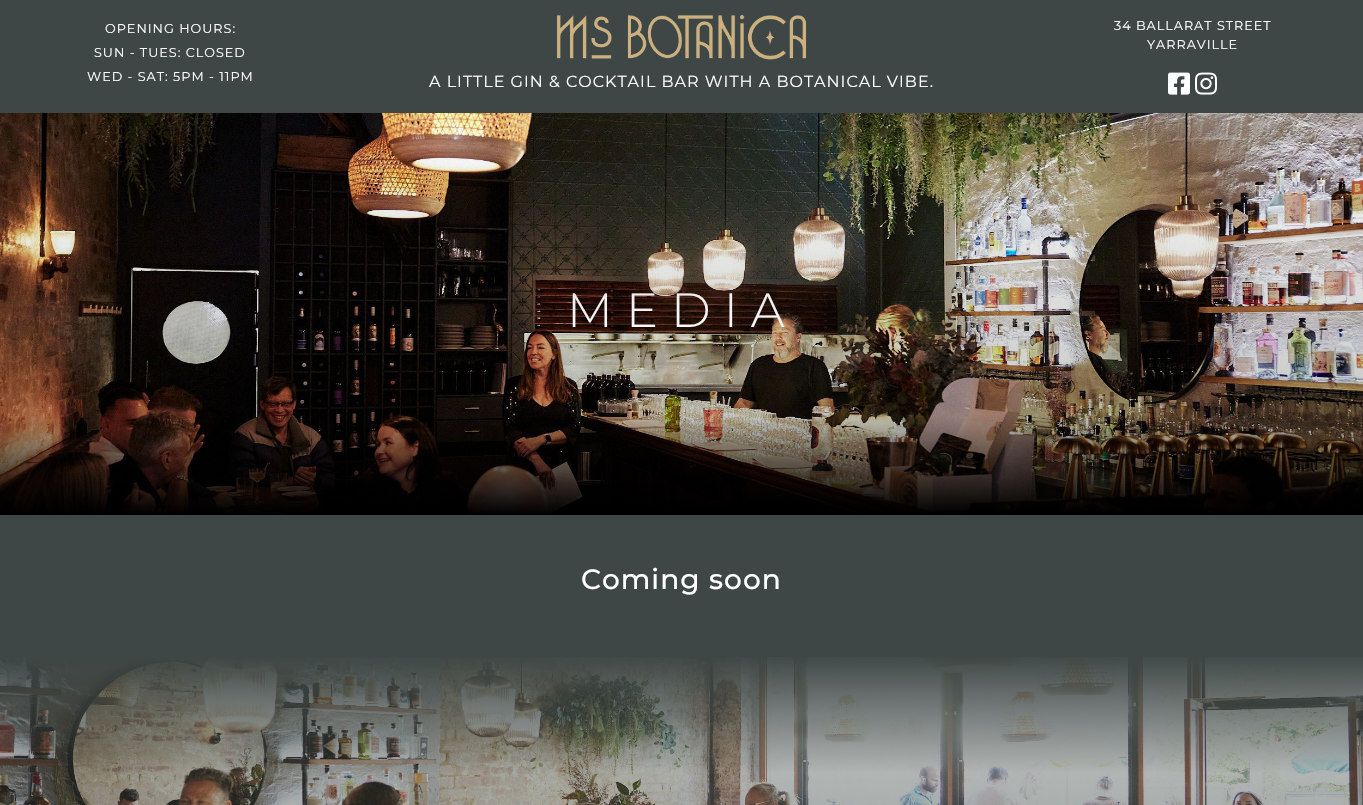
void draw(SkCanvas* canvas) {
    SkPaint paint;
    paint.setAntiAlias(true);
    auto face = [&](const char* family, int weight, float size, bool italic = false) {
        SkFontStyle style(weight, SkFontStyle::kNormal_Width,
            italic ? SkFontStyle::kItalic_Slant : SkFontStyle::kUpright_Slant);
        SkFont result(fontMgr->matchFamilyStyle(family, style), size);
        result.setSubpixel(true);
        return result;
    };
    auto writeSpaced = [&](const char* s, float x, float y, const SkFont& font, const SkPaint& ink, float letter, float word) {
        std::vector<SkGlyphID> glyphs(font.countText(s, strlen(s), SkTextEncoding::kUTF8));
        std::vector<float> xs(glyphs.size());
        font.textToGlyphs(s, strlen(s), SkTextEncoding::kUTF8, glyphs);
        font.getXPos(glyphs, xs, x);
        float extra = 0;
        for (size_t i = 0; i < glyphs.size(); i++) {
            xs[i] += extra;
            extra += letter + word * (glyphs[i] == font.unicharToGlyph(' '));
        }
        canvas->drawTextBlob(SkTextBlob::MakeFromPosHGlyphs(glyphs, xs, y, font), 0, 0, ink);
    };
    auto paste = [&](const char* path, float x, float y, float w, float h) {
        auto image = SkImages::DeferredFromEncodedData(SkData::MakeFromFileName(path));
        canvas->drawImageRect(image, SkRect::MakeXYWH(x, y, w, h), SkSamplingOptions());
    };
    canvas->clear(SkColorSetRGB(62, 71, 69));
    auto kFont1 = face("Montserrat", 400, 12.75f);
    paint.setColor(SK_ColorWHITE);
    writeSpaced("OPENING HOURS:", 105, 33, kFont1, paint, 1, 0);
    writeSpaced("SUN - TUES: CLOSED", 94, 57, kFont1, paint, 1, 0);
    writeSpaced("WED - SAT: 5PM - 11PM", 87, 81, kFont1, paint, 1, 0);
    paste("pic1.png", 556, 15, 251, 45);
    auto kFont2 = face("Montserrat", 400, 16);
    writeSpaced("A LITTLE GIN & COCKTAIL BAR WITH A BOTANICAL VIBE.", 429, 87, kFont2, paint, 1, 0);
    writeSpaced("34 BALLARAT STREET", 1114, 30, kFont1, paint, 1, 0);
    writeSpaced("YARRAVILLE", 1147, 49, kFont1, paint, 1, 0);
    paste("pic2.png", 1168, 72, 22, 23);
    paste("pic3.png", 1195, 72, 22, 23);
    paste("pic4.png", 0, 113, 1363, 402);
    auto kFont3 = face("Montserrat", 300, 48);
    {
        const SkColor colors[] = {SkColorSetRGB(234, 232, 231), SK_ColorWHITE};
        const float stops[] = {0, 1};
        const SkPoint ends[] = {{682, 278}, {682, 342}};
        paint.setShader(SkGradientShader::MakeLinear(ends, colors, stops, 2, SkTileMode::kClamp));
        paint.setAlpha(255);
    }
    writeSpaced("MEDIA", 567, 327, kFont3, paint, 13, 0);
    auto kFont4 = face("Montserrat", 500, 28);
    paint.setShader(nullptr);
    paint.setColor(SK_ColorWHITE);
    writeSpaced("Coming soon", 581, 589, kFont4, paint, 1, 0);
    paste("pic5.png", 0, 657, 1363, 148);
}
